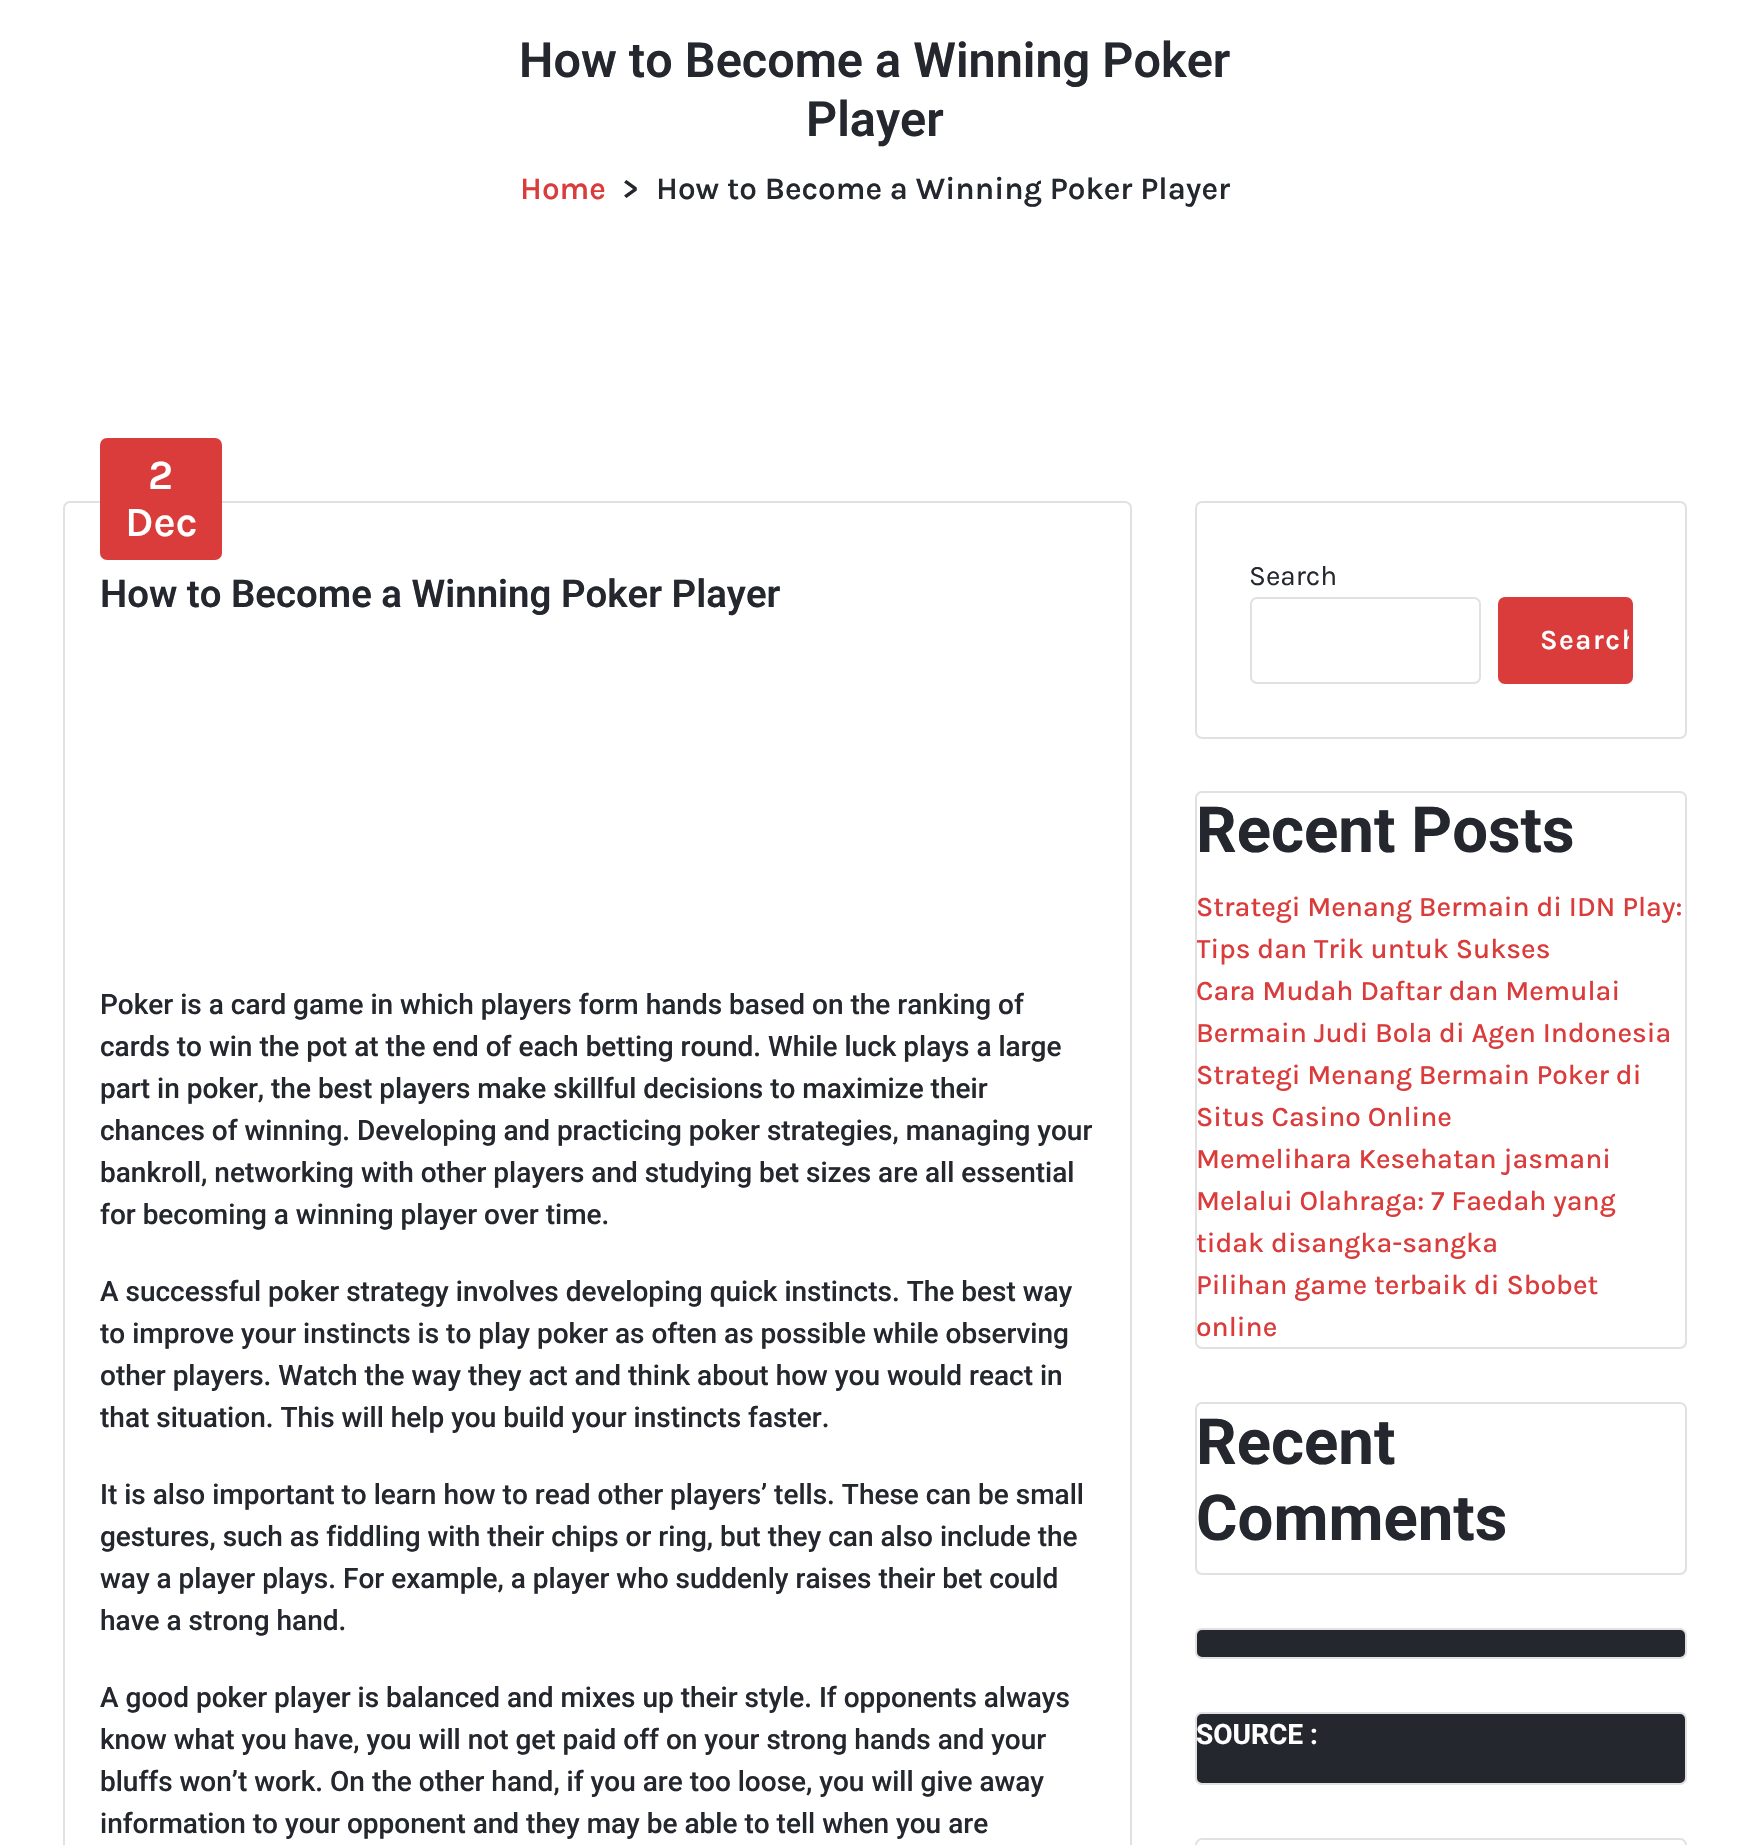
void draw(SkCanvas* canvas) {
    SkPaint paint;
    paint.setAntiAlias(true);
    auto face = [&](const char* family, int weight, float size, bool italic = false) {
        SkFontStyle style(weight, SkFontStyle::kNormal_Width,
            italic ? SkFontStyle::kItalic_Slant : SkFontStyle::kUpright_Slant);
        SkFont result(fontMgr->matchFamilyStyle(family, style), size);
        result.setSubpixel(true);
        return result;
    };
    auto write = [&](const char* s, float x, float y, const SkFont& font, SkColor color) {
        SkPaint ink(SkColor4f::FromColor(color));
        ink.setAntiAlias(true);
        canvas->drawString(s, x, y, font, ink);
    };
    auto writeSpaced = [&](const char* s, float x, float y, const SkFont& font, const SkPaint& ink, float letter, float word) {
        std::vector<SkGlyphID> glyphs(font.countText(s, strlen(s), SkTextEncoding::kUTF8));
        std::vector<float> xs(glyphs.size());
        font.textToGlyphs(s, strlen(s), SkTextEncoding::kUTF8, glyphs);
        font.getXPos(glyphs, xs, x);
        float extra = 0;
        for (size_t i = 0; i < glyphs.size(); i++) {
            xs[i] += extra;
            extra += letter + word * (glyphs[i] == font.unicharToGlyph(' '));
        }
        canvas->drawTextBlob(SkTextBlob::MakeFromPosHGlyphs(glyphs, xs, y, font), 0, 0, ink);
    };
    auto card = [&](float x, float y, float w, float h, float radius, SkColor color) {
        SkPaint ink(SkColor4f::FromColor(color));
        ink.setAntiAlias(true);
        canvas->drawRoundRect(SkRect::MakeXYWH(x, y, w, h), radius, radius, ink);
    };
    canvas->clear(SK_ColorWHITE);
    auto kFont1 = face("Roboto", 600, 48.6f);
    write("How to Become a Winning Poker", 519, 77, kFont1, SkColorSetRGB(36, 39, 46));
    write("Player", 806, 136, kFont1, SkColorSetRGB(36, 39, 46));
    auto kFont2 = face("Karla", 600, 31.5f);
    write("Home", 520, 199, kFont2, SkColorSetRGB(218, 60, 60));
    write(">", 622, 199, kFont2, SkColorSetRGB(36, 39, 46));
    write("How to Become a Winning Poker Player", 656, 199, kFont2, SkColorSetRGB(36, 39, 46));
    paint.setStyle(SkPaint::kStroke_Style);
    paint.setStrokeWidth(2);
    paint.setColor(SkColorSetRGB(225, 225, 225));
    canvas->drawRoundRect(SkRect::MakeXYWH(64, 502, 1067, 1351), 6, 6, paint);
    card(100, 438, 122, 122, 7, SkColorSetRGB(218, 60, 60));
    auto kFont3 = face("Karla", 600, 42);
    write("2", 148, 489, kFont3, SK_ColorWHITE);
    write("Dec", 125, 536, kFont3, SK_ColorWHITE);
    auto kFont4 = face("Roboto", 600, 38.4f);
    write("How to Become a Winning Poker Player", 100, 607, kFont4, SkColorSetRGB(36, 39, 46));
    auto kFont5 = face("Roboto", 500, 28);
    write("Poker is a card game in which players form hands based on the ranking of", 100, 1014, kFont5, SkColorSetRGB(36, 39, 46));
    write("cards to win the pot at the end of each betting round. While luck plays a large", 100, 1056, kFont5, SkColorSetRGB(36, 39, 46));
    write("part in poker, the best players make skillful decisions to maximize their", 100, 1098, kFont5, SkColorSetRGB(36, 39, 46));
    write("chances of winning. Developing and practicing poker strategies, managing your", 100, 1140, kFont5, SkColorSetRGB(36, 39, 46));
    write("bankroll, networking with other players and studying bet sizes are all essential", 100, 1182, kFont5, SkColorSetRGB(36, 39, 46));
    write("for becoming a winning player over time.", 100, 1224, kFont5, SkColorSetRGB(36, 39, 46));
    write("A successful poker strategy involves developing quick instincts. The best way", 100, 1301, kFont5, SkColorSetRGB(36, 39, 46));
    write("to improve your instincts is to play poker as often as possible while observing", 100, 1343, kFont5, SkColorSetRGB(36, 39, 46));
    write("other players. Watch the way they act and think about how you would react in", 100, 1385, kFont5, SkColorSetRGB(36, 39, 46));
    write("that situation. This will help you build your instincts faster.", 100, 1427, kFont5, SkColorSetRGB(36, 39, 46));
    write("It is also important to learn how to read other players’ tells. These can be small", 100, 1504, kFont5, SkColorSetRGB(36, 39, 46));
    write("gestures, such as fiddling with their chips or ring, but they can also include the", 100, 1546, kFont5, SkColorSetRGB(36, 39, 46));
    write("way a player plays. For example, a player who suddenly raises their bet could", 100, 1588, kFont5, SkColorSetRGB(36, 39, 46));
    write("have a strong hand.", 100, 1630, kFont5, SkColorSetRGB(36, 39, 46));
    write("A good poker player is balanced and mixes up their style. If opponents always", 100, 1707, kFont5, SkColorSetRGB(36, 39, 46));
    write("know what you have, you will not get paid off on your strong hands and your", 100, 1749, kFont5, SkColorSetRGB(36, 39, 46));
    write("bluffs won’t work. On the other hand, if you are too loose, you will give away", 100, 1791, kFont5, SkColorSetRGB(36, 39, 46));
    write("information to your opponent and they may be able to tell when you are", 100, 1833, kFont5, SkColorSetRGB(36, 39, 46));
    canvas->drawRoundRect(SkRect::MakeXYWH(1196, 502, 490, 236), 6, 6, paint);
    auto kFont6 = face("Karla", 400, 28);
    write("Search", 1249, 585, kFont6, SkColorSetRGB(36, 39, 46));
    canvas->drawRoundRect(SkRect::MakeXYWH(1251, 598, 229, 85), 6, 6, paint);
    card(1498, 597, 135, 87, 7, SkColorSetRGB(218, 60, 60));
    canvas->save();
    canvas->clipPath(SkPathBuilder().moveTo(1506, 600).lineTo(1625, 600).cubicTo(1627, 600, 1629, 602, 1629, 604).lineTo(1629, 677).cubicTo(1629, 679, 1627, 681, 1625, 681).lineTo(1506, 681).cubicTo(1504, 681, 1502, 679, 1502, 677).lineTo(1502, 604).cubicTo(1502, 602, 1504, 600, 1506, 600).close().detach(), true);
    auto kFont7 = face("Karla", 600, 28);
    paint.setStyle(SkPaint::kFill_Style);
    paint.setColor(SK_ColorWHITE);
    writeSpaced("Search", 1540, 649, kFont7, paint, 1.5f, 0);
    canvas->restore();
    paint.setStyle(SkPaint::kStroke_Style);
    paint.setColor(SkColorSetRGB(225, 225, 225));
    canvas->drawRoundRect(SkRect::MakeXYWH(1196, 792, 490, 556), 6, 6, paint);
    auto kFont8 = face("Roboto", 700, 63.5f);
    write("Recent Posts", 1196, 852, kFont8, SkColorSetRGB(36, 39, 46));
    auto kFont9 = face("Karla", 500, 28);
    write("Strategi Menang Bermain di IDN Play:", 1196, 916, kFont9, SkColorSetRGB(218, 60, 60));
    canvas->save();
    canvas->clipPath(SkPathBuilder().moveTo(1202, 793).lineTo(1680, 793).cubicTo(1683, 793, 1685, 795, 1685, 798).lineTo(1685, 1343).cubicTo(1685, 1346, 1683, 1348, 1680, 1348).lineTo(1202, 1348).cubicTo(1199, 1348, 1197, 1346, 1197, 1343).lineTo(1197, 798).cubicTo(1197, 795, 1199, 793, 1202, 793).close().detach(), true);
    write("Tips dan Trik untuk Sukses", 1196, 958, kFont9, SkColorSetRGB(218, 60, 60));
    canvas->restore();
    write("Cara Mudah Daftar dan Memulai", 1196, 1000, kFont9, SkColorSetRGB(218, 60, 60));
    write("Bermain Judi Bola di Agen Indonesia", 1196, 1042, kFont9, SkColorSetRGB(218, 60, 60));
    write("Strategi Menang Bermain Poker di", 1196, 1084, kFont9, SkColorSetRGB(218, 60, 60));
    write("Situs Casino Online", 1196, 1126, kFont9, SkColorSetRGB(218, 60, 60));
    write("Memelihara Kesehatan jasmani", 1196, 1168, kFont9, SkColorSetRGB(218, 60, 60));
    write("Melalui Olahraga: 7 Faedah yang", 1196, 1210, kFont9, SkColorSetRGB(218, 60, 60));
    write("tidak disangka-sangka", 1196, 1252, kFont9, SkColorSetRGB(218, 60, 60));
    write("Pilihan game terbaik di Sbobet", 1196, 1294, kFont9, SkColorSetRGB(218, 60, 60));
    write("online", 1196, 1336, kFont9, SkColorSetRGB(218, 60, 60));
    canvas->drawRoundRect(SkRect::MakeXYWH(1196, 1403, 490, 171), 6, 6, paint);
    write("Recent", 1196, 1464, kFont8, SkColorSetRGB(36, 39, 46));
    write("Comments", 1196, 1540, kFont8, SkColorSetRGB(36, 39, 46));
    paint.setStyle(SkPaint::kFill_Style);
    paint.setColor(SkColorSetRGB(36, 39, 46));
    canvas->drawRoundRect(SkRect::MakeXYWH(1196, 1629, 490, 29), 6, 6, paint);
    paint.setStyle(SkPaint::kStroke_Style);
    paint.setColor(SkColorSetRGB(225, 225, 225));
    canvas->drawRoundRect(SkRect::MakeXYWH(1196, 1629, 490, 29), 6, 6, paint);
    paint.setStyle(SkPaint::kFill_Style);
    paint.setColor(SkColorSetRGB(36, 39, 46));
    canvas->drawRoundRect(SkRect::MakeXYWH(1196, 1713, 490, 71), 6, 6, paint);
    paint.setStyle(SkPaint::kStroke_Style);
    paint.setColor(SkColorSetRGB(225, 225, 225));
    canvas->drawRoundRect(SkRect::MakeXYWH(1196, 1713, 490, 71), 6, 6, paint);
    auto kFont10 = face("Roboto", 700, 28);
    write("SOURCE :", 1196, 1744, kFont10, SK_ColorWHITE);
    canvas->drawRoundRect(SkRect::MakeXYWH(1196, 1839, 490, 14), 6, 6, paint);
}
